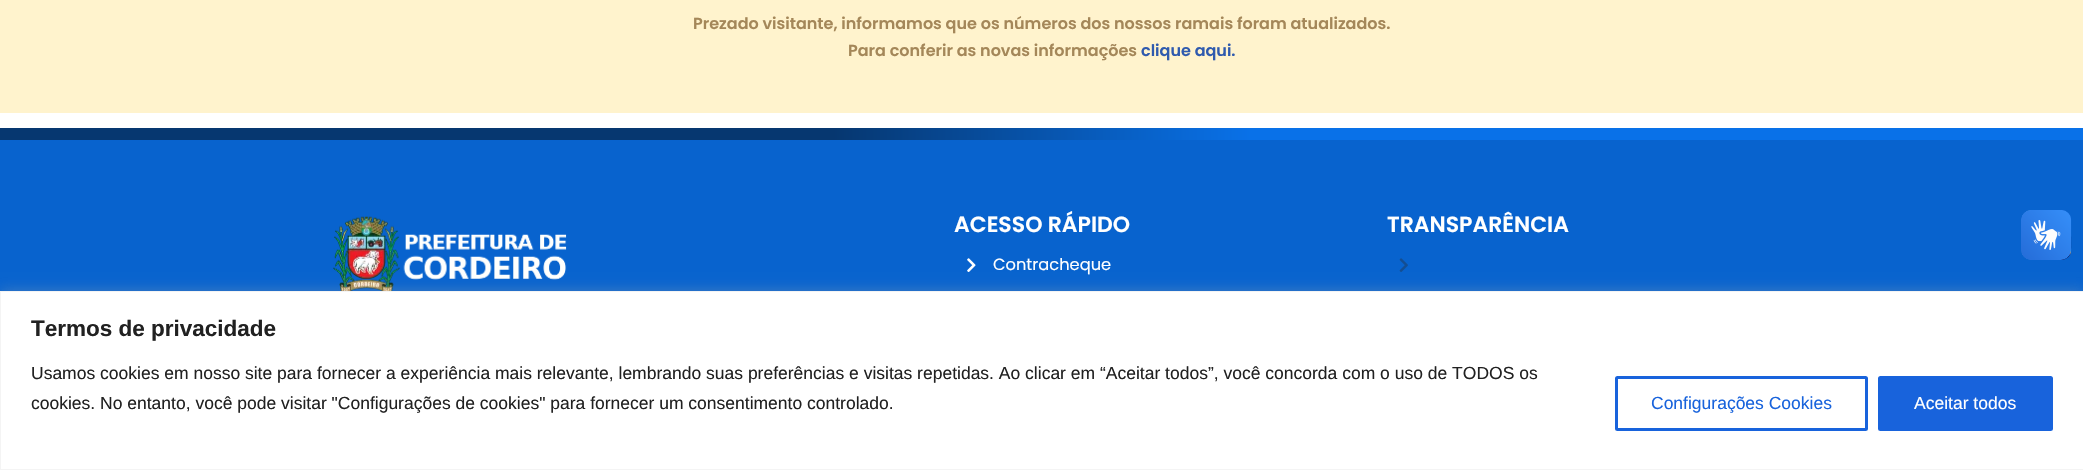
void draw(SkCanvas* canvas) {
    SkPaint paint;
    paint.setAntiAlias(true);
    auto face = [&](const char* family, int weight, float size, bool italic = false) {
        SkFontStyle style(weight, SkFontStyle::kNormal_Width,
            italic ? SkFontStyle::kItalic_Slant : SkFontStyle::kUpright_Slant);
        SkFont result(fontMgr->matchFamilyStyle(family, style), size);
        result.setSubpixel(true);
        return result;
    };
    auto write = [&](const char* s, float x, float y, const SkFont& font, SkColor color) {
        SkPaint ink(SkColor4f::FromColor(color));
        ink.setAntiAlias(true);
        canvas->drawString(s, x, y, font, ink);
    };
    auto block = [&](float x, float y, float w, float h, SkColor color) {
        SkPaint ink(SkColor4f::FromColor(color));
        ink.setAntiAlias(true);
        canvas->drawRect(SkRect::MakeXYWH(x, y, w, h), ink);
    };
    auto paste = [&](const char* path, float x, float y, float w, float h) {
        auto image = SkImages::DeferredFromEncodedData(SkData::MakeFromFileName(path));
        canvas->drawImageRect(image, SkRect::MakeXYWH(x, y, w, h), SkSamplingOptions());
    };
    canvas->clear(SK_ColorWHITE);
    block(0, 0, 2083, 113, SkColorSetRGB(255, 243, 205));
    auto kFont1 = face("Poppins", 600, 16);
    write("Prezado visitante, informamos que os números dos nossos ramais foram atualizados.", 693, 29, kFont1, SkColorSetRGB(164, 135, 89));
    write("Para conferir as novas informações", 848, 56, kFont1, SkColorSetRGB(164, 135, 89));
    write("clique aqui.", 1141, 56, kFont1, SkColorSetRGB(47, 90, 174));
    {
        const SkColor colors[] = {SkColorSetRGB(6, 55, 112), SkColorSetRGB(6, 55, 112), SkColorSetRGB(9, 113, 232), SkColorSetRGB(9, 113, 232)};
        const float stops[] = {0, 0.4f, 0.6f, 1};
        const SkPoint ends[] = {{0, 134}, {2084, 134}};
        paint.setShader(SkGradientShader::MakeLinear(ends, colors, stops, 4, SkTileMode::kClamp));
        paint.setAlpha(255);
    }
    canvas->drawRect(SkRect::MakeXYWH(0, 128, 2083, 12), paint);
    block(0, 140, 2083, 151, SkColorSetRGB(8, 99, 206));
    paste("pic1.png", 333, 216, 234, 75);
    auto kFont2 = face("Poppins", 600, 22);
    write("ACESSO RÁPIDO", 954, 232, kFont2, SK_ColorWHITE);
    paste("pic2.png", 967, 258, 9, 14);
    auto kFont3 = face("Poppins", 400, 16.25f);
    write("Contracheque", 993, 270, kFont3, SK_ColorWHITE);
    write("TRANSPARÊNCIA", 1387, 232, kFont2, SK_ColorWHITE);
    paste("pic3.png", 1399, 258, 9, 14);
    paste("pic4.png", 2021, 210, 51, 50);
    paste("pic5.png", 2021, 210, 50, 50);
    paint.setShader(nullptr);
    paint.setColor(SkColorSetARGB(77, 172, 171, 171));
    paint.setMaskFilter(SkMaskFilter::MakeBlur(kNormal_SkBlurStyle, 6));
    canvas->drawRect(SkRect::MakeXYWH(0, 290, 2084, 179), paint);
    paint.setMaskFilter(nullptr);
    paint.setColor(SK_ColorWHITE);
    canvas->drawRect(SkRect::MakeXYWH(0.5f, 291.5f, 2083, 178), paint);
    paint.setStyle(SkPaint::kStroke_Style);
    paint.setStrokeWidth(1);
    paint.setColor(SkColorSetRGB(244, 244, 244));
    canvas->drawRect(SkRect::MakeXYWH(0.5f, 291.5f, 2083, 178), paint);
    auto kFont4 = face("Liberation Sans", 700, 22.5f);
    write("Termos de privacidade", 31, 336, kFont4, SkColorSetRGB(33, 33, 33));
    auto kFont5 = face("Liberation Sans", 400, 17.5f);
    write("Usamos cookies em nosso site para fornecer a experiência mais relevante, lembrando suas preferências e visitas repetidas. Ao clicar em “Aceitar todos”, você concorda com o uso de TODOS os", 31, 379, kFont5, SkColorSetRGB(33, 33, 33));
    write("cookies. No entanto, você pode visitar \"Configurações de cookies\" para fornecer um consentimento controlado.", 31, 409, kFont5, SkColorSetRGB(33, 33, 33));
    paint.setStrokeWidth(3);
    paint.setColor(SkColorSetRGB(24, 99, 220));
    canvas->drawRoundRect(SkRect::MakeXYWH(1616.5f, 377.5f, 250, 52), 1, 1, paint);
    write("Configurações Cookies", 1651, 409, kFont5, SkColorSetRGB(24, 99, 220));
    paint.setStyle(SkPaint::kFill_Style);
    canvas->drawRoundRect(SkRect::MakeXYWH(1879.5f, 377.5f, 172, 52), 1, 1, paint);
    paint.setStyle(SkPaint::kStroke_Style);
    canvas->drawRoundRect(SkRect::MakeXYWH(1879.5f, 377.5f, 172, 52), 1, 1, paint);
    write("Aceitar todos", 1914, 409, kFont5, SK_ColorWHITE);
}
